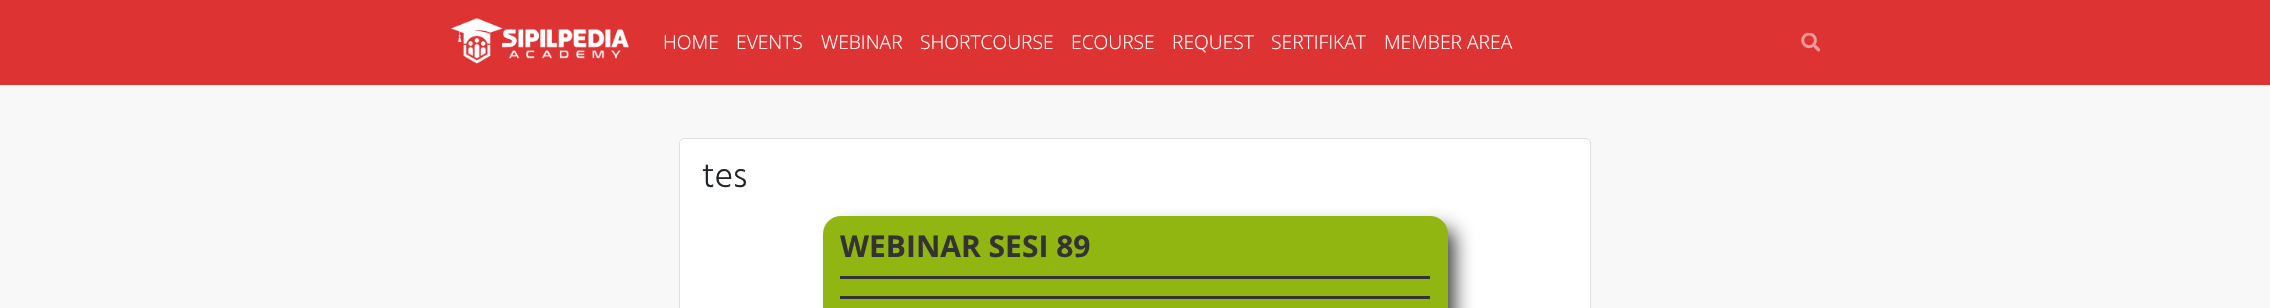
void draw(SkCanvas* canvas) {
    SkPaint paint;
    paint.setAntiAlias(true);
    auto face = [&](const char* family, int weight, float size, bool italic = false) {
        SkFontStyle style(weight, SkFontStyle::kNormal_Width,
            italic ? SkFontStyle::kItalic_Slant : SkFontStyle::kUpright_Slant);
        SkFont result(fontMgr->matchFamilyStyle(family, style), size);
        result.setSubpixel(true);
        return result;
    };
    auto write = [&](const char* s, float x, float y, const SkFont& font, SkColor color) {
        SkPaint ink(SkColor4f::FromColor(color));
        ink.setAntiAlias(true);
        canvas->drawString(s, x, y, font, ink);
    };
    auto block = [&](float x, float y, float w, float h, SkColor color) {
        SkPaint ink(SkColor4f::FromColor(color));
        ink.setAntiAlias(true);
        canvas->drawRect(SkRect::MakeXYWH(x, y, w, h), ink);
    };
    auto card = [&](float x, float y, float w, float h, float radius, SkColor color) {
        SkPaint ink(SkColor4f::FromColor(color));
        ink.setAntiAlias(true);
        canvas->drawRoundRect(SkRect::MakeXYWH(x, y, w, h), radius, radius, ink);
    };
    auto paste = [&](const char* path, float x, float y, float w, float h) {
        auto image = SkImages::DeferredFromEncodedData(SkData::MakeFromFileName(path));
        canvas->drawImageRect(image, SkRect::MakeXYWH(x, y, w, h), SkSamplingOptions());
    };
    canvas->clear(SkColorSetRGB(248, 248, 248));
    block(0, 0, 2270, 85, SkColorSetRGB(221, 51, 51));
    paste("pic1.png", 451, 18, 178, 46);
    auto kFont1 = face("Open Sans", 300, 19.25f);
    write("HOME", 663, 49, kFont1, SkColorSetRGB(252, 252, 252));
    write("EVENTS", 736, 49, kFont1, SkColorSetRGB(252, 252, 252));
    write("WEBINAR", 821, 49, kFont1, SkColorSetRGB(252, 252, 252));
    write("SHORTCOURSE", 920, 49, kFont1, SkColorSetRGB(252, 252, 252));
    write("ECOURSE", 1071, 49, kFont1, SkColorSetRGB(252, 252, 252));
    write("REQUEST", 1172, 49, kFont1, SkColorSetRGB(252, 252, 252));
    write("SERTIFIKAT", 1271, 49, kFont1, SkColorSetRGB(252, 252, 252));
    write("MEMBER AREA", 1384, 49, kFont1, SkColorSetRGB(252, 252, 252));
    paste("pic2.png", 1801, 33, 19, 19);
    card(679, 138, 912, 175, 5, SK_ColorWHITE);
    paint.setStyle(SkPaint::kStroke_Style);
    paint.setStrokeWidth(1);
    paint.setColor(SkColorSetARGB(31, 0, 0, 0));
    canvas->drawRoundRect(SkRect::MakeXYWH(679.5f, 138.5f, 911, 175), 4.5f, 4.5f, paint);
    auto kFont2 = face("Hind Guntur", 300, 35);
    write("tes", 702, 187, kFont2, SkColorSetRGB(33, 37, 41));
    paint.setStyle(SkPaint::kFill_Style);
    paint.setColor(SkColorSetRGB(51, 51, 51));
    paint.setMaskFilter(SkMaskFilter::MakeBlur(kNormal_SkBlurStyle, 9.5f));
    canvas->drawRoundRect(SkRect::MakeXYWH(841, 229, 613, 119), 11, 11, paint);
    paint.setMaskFilter(nullptr);
    card(823, 216, 625, 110, 18, SkColorSetRGB(146, 182, 17));
    auto kFont3 = face("Open Sans", 700, 30);
    write("WEBINAR SESI 89", 840, 257, kFont3, SkColorSetRGB(51, 51, 51));
    block(840, 276, 590, 3, SkColorSetRGB(51, 51, 51));
    block(840, 296, 590, 3, SkColorSetRGB(51, 51, 51));
}
